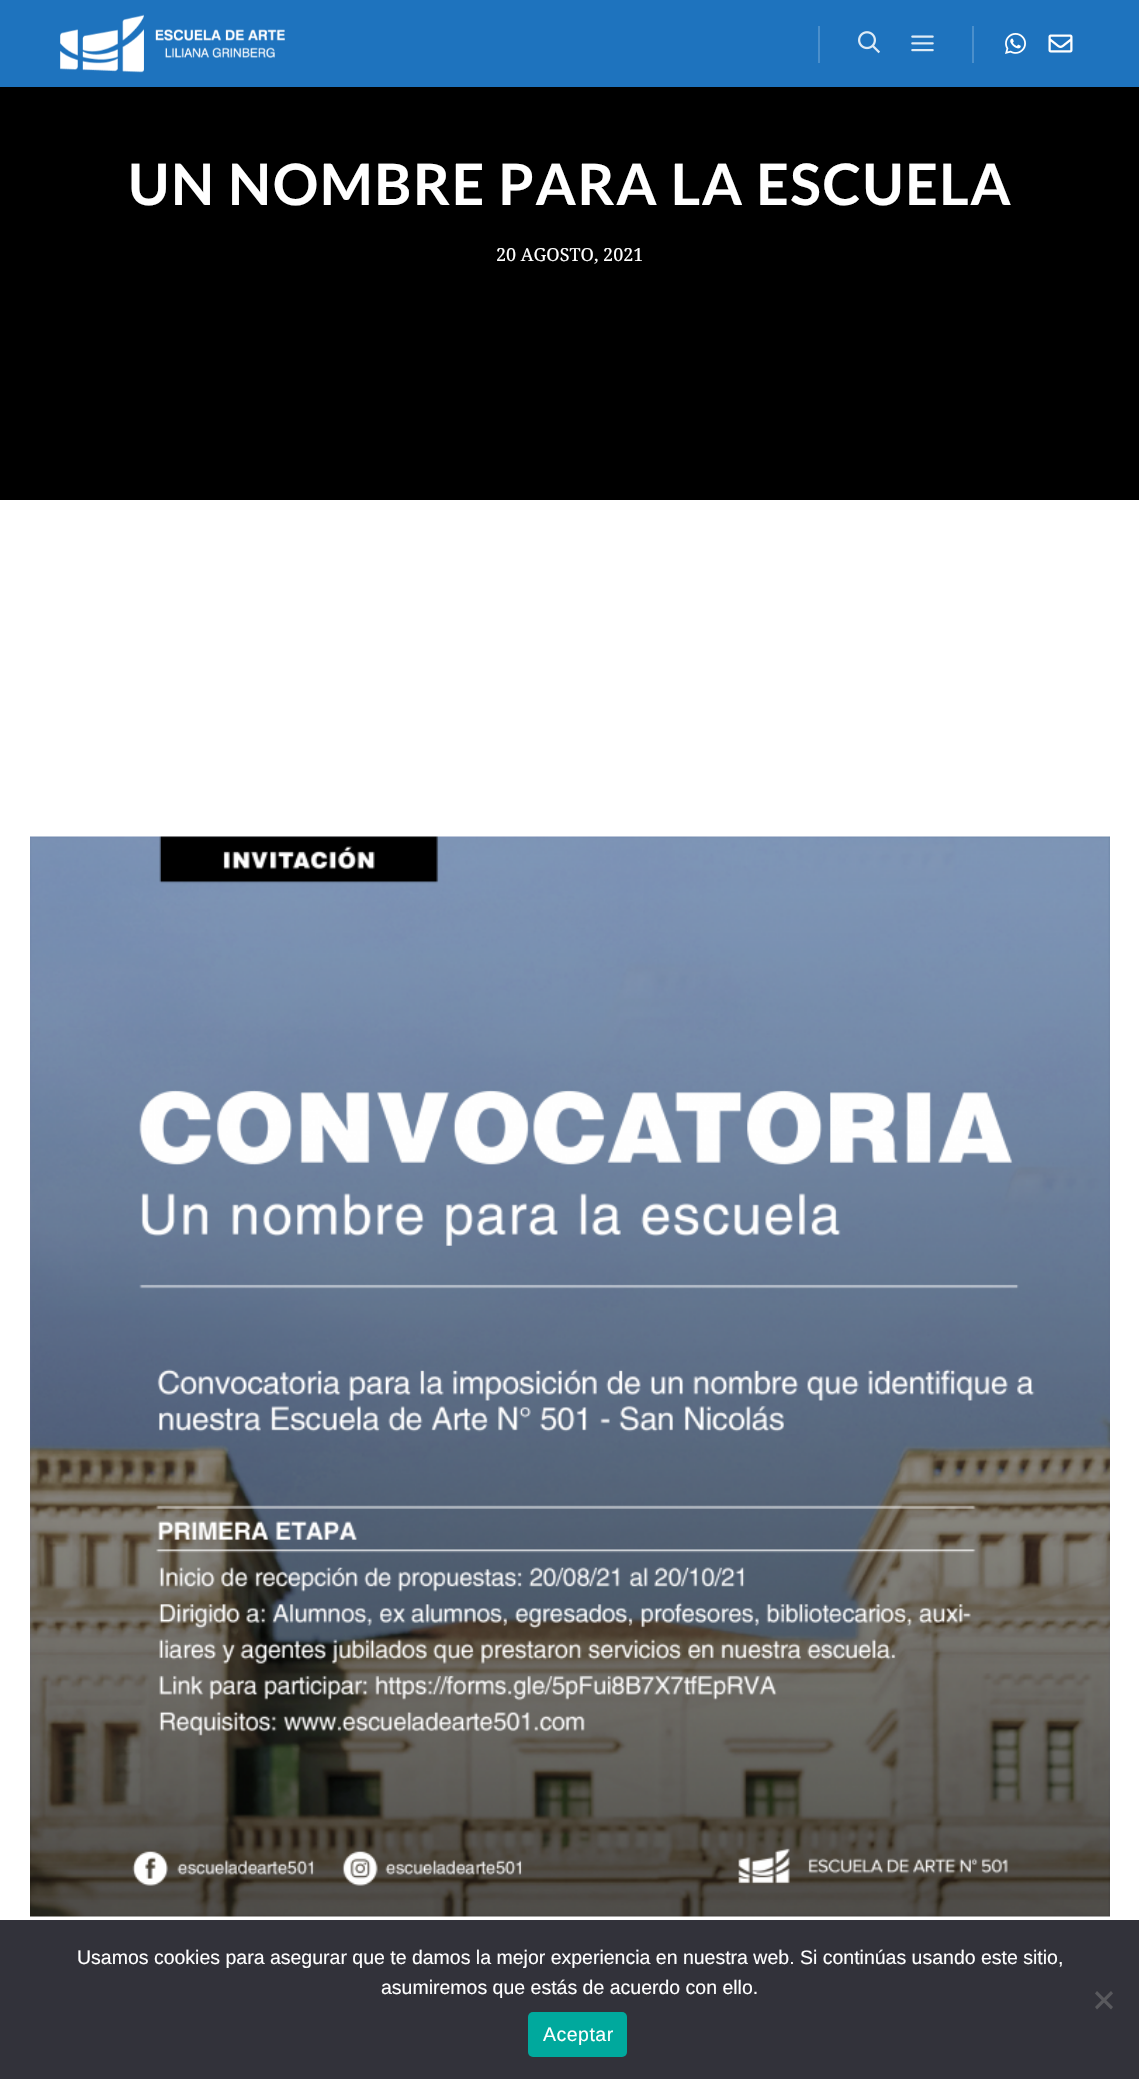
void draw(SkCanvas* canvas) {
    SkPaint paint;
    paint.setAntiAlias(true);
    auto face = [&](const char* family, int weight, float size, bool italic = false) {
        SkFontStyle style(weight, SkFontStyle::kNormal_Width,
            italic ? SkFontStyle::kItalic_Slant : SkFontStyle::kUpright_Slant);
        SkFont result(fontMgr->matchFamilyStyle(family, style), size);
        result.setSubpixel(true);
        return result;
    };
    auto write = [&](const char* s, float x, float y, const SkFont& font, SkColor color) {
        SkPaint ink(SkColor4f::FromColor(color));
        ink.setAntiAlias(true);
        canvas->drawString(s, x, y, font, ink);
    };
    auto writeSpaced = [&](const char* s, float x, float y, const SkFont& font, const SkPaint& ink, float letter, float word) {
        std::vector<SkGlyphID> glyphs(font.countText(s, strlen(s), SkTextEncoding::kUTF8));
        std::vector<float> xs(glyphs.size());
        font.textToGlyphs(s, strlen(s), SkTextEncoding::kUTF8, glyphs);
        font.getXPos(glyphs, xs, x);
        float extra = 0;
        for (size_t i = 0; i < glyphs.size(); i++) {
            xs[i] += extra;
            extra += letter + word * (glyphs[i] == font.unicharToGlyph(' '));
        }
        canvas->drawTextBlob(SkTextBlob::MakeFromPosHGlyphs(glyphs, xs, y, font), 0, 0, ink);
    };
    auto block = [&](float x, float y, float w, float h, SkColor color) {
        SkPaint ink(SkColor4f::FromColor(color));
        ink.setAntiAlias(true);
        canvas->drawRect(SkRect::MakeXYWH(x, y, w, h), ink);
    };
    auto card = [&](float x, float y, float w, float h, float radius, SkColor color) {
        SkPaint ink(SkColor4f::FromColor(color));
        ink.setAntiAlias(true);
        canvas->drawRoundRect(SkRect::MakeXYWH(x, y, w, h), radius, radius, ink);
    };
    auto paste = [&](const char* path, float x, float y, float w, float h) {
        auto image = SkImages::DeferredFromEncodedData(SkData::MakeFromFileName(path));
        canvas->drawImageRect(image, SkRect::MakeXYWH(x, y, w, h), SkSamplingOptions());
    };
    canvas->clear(SK_ColorWHITE);
    block(0, 0, 1139, 87, SkColorSetRGB(30, 115, 190));
    paste("pic1.png", 60, 14, 225, 59);
    block(818, 26, 2, 37, SkColorSetRGB(75, 143, 203));
    paste("pic2.png", 858, 31, 22, 23);
    paste("pic3.png", 911, 35, 23, 17);
    block(972, 26, 2, 37, SkColorSetRGB(75, 143, 203));
    paste("pic4.png", 1005, 33, 21, 21);
    paste("pic5.png", 1048, 34, 25, 19);
    block(0, 87, 1139, 413, SK_ColorBLACK);
    auto kFont1 = face("Lato", 700, 57);
    paint.setColor(SK_ColorWHITE);
    writeSpaced("UN NOMBRE PARA LA ESCUELA", 128, 205, kFont1, paint, 1.5f, 0);
    auto kFont2 = face("Noto Serif", 400, 18);
    write("20 AGOSTO, 2021", 496, 261, kFont2, SK_ColorWHITE);
    paste("pic6.png", 30, 836, 1080, 1081);
    block(0, 1920, 1139, 159, SkColorSetRGB(50, 50, 58));
    auto kFont3 = face("Liberation Sans", 400, 19.5f);
    write("Usamos cookies para asegurar que te damos la mejor experiencia en nuestra web. Si continúas usando este sitio,", 77, 1964, kFont3, SK_ColorWHITE);
    write("asumiremos que estás de acuerdo con ello.", 381, 1994, kFont3, SK_ColorWHITE);
    paint.setColor(SkColorSetRGB(89, 89, 93));
    canvas->drawPath(SkPathBuilder().moveTo(1111, 1991).lineTo(1113, 1993.5f).lineTo(1097, 2009.5f).lineTo(1095, 2007).close().detach(), paint);
    canvas->drawPath(SkPathBuilder().moveTo(1095, 1993.5f).lineTo(1097, 1991).lineTo(1113, 2007).lineTo(1111, 2009.5f).close().detach(), paint);
    card(528, 2012, 99, 45, 5, SkColorSetRGB(0, 169, 157));
    paint.setColor(SK_ColorWHITE);
    writeSpaced("Aceptar", 543, 2041, kFont3, paint, 0.5f, 0);
}
